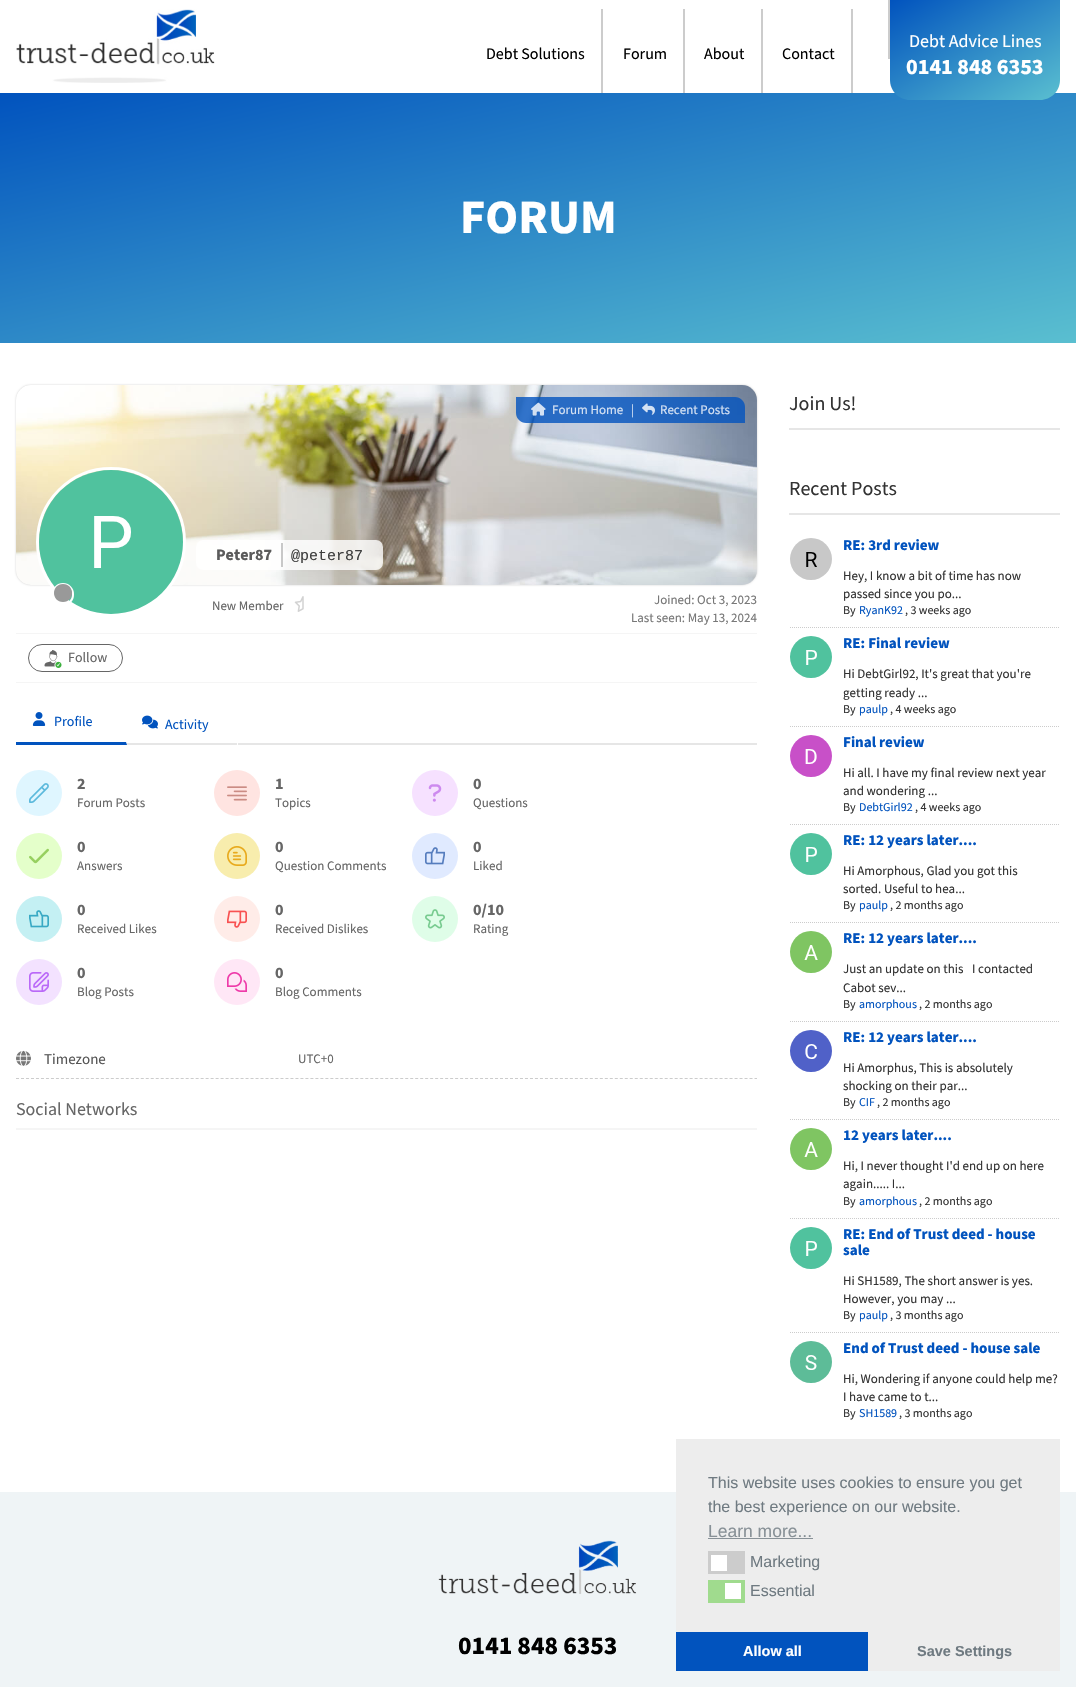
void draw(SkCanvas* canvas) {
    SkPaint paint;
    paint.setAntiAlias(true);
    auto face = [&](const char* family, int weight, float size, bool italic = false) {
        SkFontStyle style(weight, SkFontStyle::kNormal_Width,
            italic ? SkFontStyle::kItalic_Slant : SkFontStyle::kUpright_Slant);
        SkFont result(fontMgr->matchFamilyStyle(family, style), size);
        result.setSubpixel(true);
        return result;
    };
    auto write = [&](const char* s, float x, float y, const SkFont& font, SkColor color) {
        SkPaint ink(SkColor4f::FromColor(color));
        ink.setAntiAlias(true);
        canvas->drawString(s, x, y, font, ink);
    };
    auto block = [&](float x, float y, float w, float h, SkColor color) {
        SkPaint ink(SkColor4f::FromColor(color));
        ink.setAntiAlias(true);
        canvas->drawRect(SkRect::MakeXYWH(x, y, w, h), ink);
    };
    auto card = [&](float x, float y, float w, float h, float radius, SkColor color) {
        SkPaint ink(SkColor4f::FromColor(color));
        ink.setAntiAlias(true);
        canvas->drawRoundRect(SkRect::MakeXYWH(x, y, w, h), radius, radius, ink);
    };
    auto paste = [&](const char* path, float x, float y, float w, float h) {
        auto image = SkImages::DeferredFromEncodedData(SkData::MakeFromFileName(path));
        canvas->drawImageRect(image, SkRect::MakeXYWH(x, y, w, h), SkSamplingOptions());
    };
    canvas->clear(SK_ColorWHITE);
    paste("pic1.png", 16, 9, 199, 74);
    block(601, 9, 2, 84, SkColorSetRGB(204, 204, 204));
    auto kFont1 = face("Source Sans Pro", 400, 16);
    write("Debt Solutions", 486, 59, kFont1, SK_ColorBLACK);
    block(683, 9, 2, 84, SkColorSetRGB(204, 204, 204));
    write("Forum", 623, 59, kFont1, SK_ColorBLACK);
    block(761, 9, 2, 84, SkColorSetRGB(204, 204, 204));
    write("About", 704, 59, kFont1, SK_ColorBLACK);
    block(851, 9, 2, 84, SkColorSetRGB(204, 204, 204));
    write("Contact", 782, 59, kFont1, SK_ColorBLACK);
    block(888, 0, 2, 59, SkColorSetRGB(204, 204, 204));
    {
        const SkColor colors[] = {SkColorSetRGB(1, 83, 190), SkColorSetRGB(90, 191, 208)};
        const float stops[] = {0, 1};
        const SkPoint ends[] = {{483, -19}, {593, 455}};
        paint.setShader(SkGradientShader::MakeLinear(ends, colors, stops, 2, SkTileMode::kClamp));
        paint.setAlpha(255);
    }
    canvas->drawRect(SkRect::MakeXYWH(0, 93, 1076, 250), paint);
    {
        const SkColor colors[] = {SkColorSetRGB(1, 83, 190), SkColorSetRGB(90, 191, 208)};
        const float stops[] = {0, 1};
        const SkPoint ends[] = {{931, -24}, {1019, 124}};
        paint.setShader(SkGradientShader::MakeLinear(ends, colors, stops, 2, SkTileMode::kClamp));
        paint.setAlpha(255);
    }
    canvas->drawPath(SkPathBuilder().moveTo(890, 0).lineTo(1060, 0).lineTo(1060, 80).cubicTo(1060, 91, 1051, 100, 1040, 100).lineTo(910, 100).cubicTo(899, 100, 890, 91, 890, 80).close().detach(), paint);
    auto kFont2 = face("Source Sans Pro", 400, 18);
    write("Debt Advice Lines", 909, 47, kFont2, SK_ColorWHITE);
    auto kFont3 = face("Source Sans Pro", 700, 22);
    write("0141 848 6353", 906, 74, kFont3, SK_ColorWHITE);
    auto kFont4 = face("Source Sans Pro", 700, 48);
    write("FORUM", 460, 233, kFont4, SK_ColorWHITE);
    paint.setShader(nullptr);
    paint.setColor(SkColorSetRGB(204, 204, 204));
    paint.setMaskFilter(SkMaskFilter::MakeBlur(kNormal_SkBlurStyle, 1));
    canvas->drawRoundRect(SkRect::MakeXYWH(16, 385, 741, 200), 15, 15, paint);
    paint.setMaskFilter(nullptr);
    paste("pic2.png", 16, 385, 741, 200);
    paint.setColor(SkColorSetARGB(204, 1, 83, 190));
    canvas->drawPath(SkPathBuilder().moveTo(516, 397).lineTo(735, 397).cubicTo(740.5f, 397, 745, 401.5f, 745, 407).lineTo(745, 423).lineTo(526, 423).cubicTo(520.5f, 423, 516, 418.5f, 516, 413).close().detach(), paint);
    paste("pic3.png", 531, 402, 15, 14);
    auto kFont5 = face("Source Sans Pro", 400, 13);
    write("Forum Home", 552, 414, kFont5, SkColorSetRGB(212, 225, 243));
    write("|", 631, 414, kFont5, SkColorSetRGB(212, 225, 243));
    paste("pic4.png", 642, 403, 13, 12);
    write("Recent Posts", 660, 414, kFont5, SkColorSetRGB(212, 225, 243));
    paint.setStyle(SkPaint::kStroke_Style);
    paint.setStrokeWidth(3);
    paint.setColor(SK_ColorWHITE);
    canvas->drawCircle(111, 542, 73.5f, paint);
    paste("pic5.png", 39, 470, 144, 144);
    paint.setStrokeWidth(2);
    canvas->drawRoundRect(SkRect::MakeXYWH(53, 584, 20, 21), 10, 10, paint);
    paint.setStyle(SkPaint::kFill_Style);
    paint.setColor(SkColorSetRGB(153, 153, 153));
    canvas->drawPath(SkPathBuilder().moveTo(63, 602).cubicTo(75, 602, 75, 584, 63, 584).cubicTo(51, 584, 51, 602, 63, 602).close().detach(), paint);
    card(196, 540, 187, 30, 7, SkColorSetARGB(204, 255, 255, 255));
    auto kFont6 = face("Source Sans Pro", 700, 16);
    write("Peter87", 216, 560, kFont6, SkColorSetRGB(91, 91, 91));
    block(281, 543, 2, 24, SkColorSetRGB(200, 200, 200));
    auto kFont7 = face("Liberation Mono", 400, 15);
    write("@peter87", 291, 560, kFont7, SkColorSetRGB(62, 62, 62));
    write("New Member", 212, 610, kFont5, SkColorSetRGB(102, 102, 102));
    paste("pic6.png", 294, 596, 10, 16);
    write("Joined: Oct 3, 2023", 654, 604, kFont5, SkColorSetRGB(119, 119, 119));
    write("Last seen: May 13, 2024", 631, 622, kFont5, SkColorSetRGB(119, 119, 119));
    block(16, 633, 741, 1, SkColorSetRGB(245, 245, 245));
    block(16, 682, 741, 1, SkColorSetRGB(245, 245, 245));
    paint.setStyle(SkPaint::kStroke_Style);
    paint.setStrokeWidth(1);
    paint.setColor(SkColorSetRGB(102, 102, 102));
    canvas->drawRoundRect(SkRect::MakeXYWH(28.5f, 644.5f, 94, 27), 13.5f, 13.5f, paint);
    paste("pic7.png", 44, 650, 18, 18);
    auto kFont8 = face("Source Sans Pro", 400, 14);
    write("Follow", 68, 662, kFont8, SkColorSetRGB(102, 102, 102));
    block(126, 743, 631, 2, SkColorSetRGB(230, 230, 230));
    paint.setStyle(SkPaint::kFill_Style);
    paint.setColor(SK_ColorWHITE);
    canvas->drawPath(SkPathBuilder().moveTo(127, 703).lineTo(127, 745).lineTo(126, 742).lineTo(126, 703).close().detach(), paint);
    paint.setColor(SkColorSetRGB(1, 83, 190));
    canvas->drawPath(SkPathBuilder().moveTo(127, 745).lineTo(16, 745).lineTo(16, 742).lineTo(126, 742).close().detach(), paint);
    paste("pic8.png", 32, 712, 14, 14);
    write("Profile", 54, 726, kFont8, SkColorSetRGB(1, 83, 190));
    block(237, 743, 1, 2, SK_ColorWHITE);
    paste("pic9.png", 142, 715, 16, 14);
    write("Activity", 165, 729, kFont8, SkColorSetRGB(1, 83, 190));
    paint.setColor(SkColorSetRGB(223, 246, 255));
    canvas->drawCircle(39, 793, 23, paint);
    paste("pic10.png", 29, 783, 20, 20);
    write("2", 77, 789, kFont6, SkColorSetRGB(102, 102, 102));
    write("Forum Posts", 77, 807, kFont5, SkColorSetRGB(102, 102, 102));
    paint.setColor(SkColorSetRGB(255, 228, 225));
    canvas->drawCircle(237, 793, 23, paint);
    paste("pic11.png", 227, 786, 20, 15);
    write("1", 275, 789, kFont6, SkColorSetRGB(102, 102, 102));
    write("Topics", 275, 807, kFont5, SkColorSetRGB(102, 102, 102));
    paint.setColor(SkColorSetRGB(246, 225, 255));
    canvas->drawCircle(435, 793, 23, paint);
    paste("pic12.png", 428, 784, 14, 18);
    write("0", 473, 789, kFont6, SkColorSetRGB(102, 102, 102));
    write("Questions", 473, 807, kFont5, SkColorSetRGB(102, 102, 102));
    paint.setColor(SkColorSetRGB(228, 255, 202));
    canvas->drawCircle(39, 856, 23, paint);
    paste("pic13.png", 29, 848, 20, 16);
    write("0", 77, 852, kFont6, SkColorSetRGB(102, 102, 102));
    write("Answers", 77, 870, kFont5, SkColorSetRGB(102, 102, 102));
    paint.setColor(SkColorSetRGB(248, 237, 173));
    canvas->drawCircle(237, 856, 23, paint);
    paste("pic14.png", 227, 846, 20, 20);
    write("0", 275, 852, kFont6, SkColorSetRGB(102, 102, 102));
    write("Question Comments", 275, 870, kFont5, SkColorSetRGB(102, 102, 102));
    paint.setColor(SkColorSetRGB(224, 234, 255));
    canvas->drawCircle(435, 856, 23, paint);
    paste("pic15.png", 425, 847, 20, 18);
    write("0", 473, 852, kFont6, SkColorSetRGB(102, 102, 102));
    write("Liked", 473, 870, kFont5, SkColorSetRGB(102, 102, 102));
    paint.setColor(SkColorSetRGB(196, 240, 243));
    canvas->drawCircle(39, 919, 23, paint);
    paste("pic16.png", 29, 910, 20, 18);
    write("0", 77, 915, kFont6, SkColorSetRGB(102, 102, 102));
    write("Received Likes", 77, 933, kFont5, SkColorSetRGB(102, 102, 102));
    paint.setColor(SkColorSetRGB(255, 236, 232));
    canvas->drawCircle(237, 919, 23, paint);
    paste("pic17.png", 227, 910, 20, 18);
    write("0", 275, 915, kFont6, SkColorSetRGB(102, 102, 102));
    write("Received Dislikes", 275, 933, kFont5, SkColorSetRGB(102, 102, 102));
    paint.setColor(SkColorSetRGB(223, 253, 232));
    canvas->drawCircle(435, 919, 23, paint);
    paste("pic18.png", 425, 909, 20, 20);
    write("0/10", 473, 915, kFont6, SkColorSetRGB(102, 102, 102));
    write("Rating", 473, 933, kFont5, SkColorSetRGB(102, 102, 102));
    paint.setColor(SkColorSetRGB(243, 226, 255));
    canvas->drawCircle(39, 982, 23, paint);
    paste("pic19.png", 29, 972, 20, 20);
    write("0", 77, 978, kFont6, SkColorSetRGB(102, 102, 102));
    write("Blog Posts", 77, 996, kFont5, SkColorSetRGB(102, 102, 102));
    paint.setColor(SkColorSetRGB(255, 231, 246));
    canvas->drawCircle(237, 982, 23, paint);
    paste("pic20.png", 227, 972, 20, 20);
    write("0", 275, 978, kFont6, SkColorSetRGB(102, 102, 102));
    write("Blog Comments", 275, 996, kFont5, SkColorSetRGB(102, 102, 102));
    paint.setStyle(SkPaint::kStroke_Style);
    paint.setColor(SkColorSetRGB(204, 204, 204));
    paint.setPathEffect(SkDashPathEffect::Make({{3, 1.99f}}, 0));
    canvas->drawPath(SkPathBuilder().moveTo(16, 1078.5f).lineTo(757, 1078.5f).detach(), paint);
    paint.setPathEffect(nullptr);
    paste("pic21.png", 16, 1050, 15, 16);
    auto kFont9 = face("Source Sans Pro", 400, 15);
    write("Timezone", 44, 1064, kFont9, SkColorSetRGB(85, 85, 85));
    write("UTC+0", 298, 1063, kFont5, SkColorSetRGB(102, 102, 102));
    block(16, 1128, 741, 2, SkColorSetRGB(245, 245, 245));
    write("Social Networks", 16, 1115, kFont2, SkColorSetRGB(102, 102, 102));
    block(789, 428, 271, 2, SkColorSetRGB(230, 230, 230));
    auto kFont10 = face("Source Sans Pro", 400, 20);
    write("Join Us!", 789, 410, kFont10, SkColorSetRGB(51, 51, 51));
    block(789, 513, 271, 2, SkColorSetRGB(230, 230, 230));
    write("Recent Posts", 789, 495, kFont10, SkColorSetRGB(51, 51, 51));
    paint.setPathEffect(SkDashPathEffect::Make({{1, 1}}, 0));
    canvas->drawPath(SkPathBuilder().moveTo(790, 627.5f).lineTo(1059, 627.5f).detach(), paint);
    paint.setPathEffect(nullptr);
    paste("pic22.png", 790, 538, 42, 42);
    auto kFont11 = face("Source Sans Pro", 700, 15);
    write("RE: 3rd review", 843, 550, kFont11, SkColorSetRGB(1, 83, 190));
    write("Hey, I know a bit of time has now", 843, 580, kFont5, SkColorSetRGB(51, 51, 51));
    write("passed since you po...", 843, 598, kFont5, SkColorSetRGB(51, 51, 51));
    auto kFont12 = face("Source Sans Pro", 400, 12);
    write("By", 843, 614, kFont12, SkColorSetRGB(51, 51, 51));
    write("RyanK92", 859, 614, kFont12, SkColorSetRGB(1, 83, 190));
    write(", 3 weeks ago", 905, 614, kFont12, SkColorSetRGB(51, 51, 51));
    paint.setPathEffect(SkDashPathEffect::Make({{1, 1}}, 0));
    canvas->drawPath(SkPathBuilder().moveTo(790, 726.5f).lineTo(1059, 726.5f).detach(), paint);
    paint.setPathEffect(nullptr);
    paste("pic23.png", 790, 636, 42, 42);
    write("RE: Final review", 843, 648, kFont11, SkColorSetRGB(1, 83, 190));
    write("Hi DebtGirl92, It's great that you're", 843, 678, kFont5, SkColorSetRGB(51, 51, 51));
    write("getting ready ...", 843, 697, kFont5, SkColorSetRGB(51, 51, 51));
    write("By", 843, 713, kFont12, SkColorSetRGB(51, 51, 51));
    write("paulp", 859, 713, kFont12, SkColorSetRGB(1, 83, 190));
    write(", 4 weeks ago", 890, 713, kFont12, SkColorSetRGB(51, 51, 51));
    paint.setPathEffect(SkDashPathEffect::Make({{1, 1}}, 0));
    canvas->drawPath(SkPathBuilder().moveTo(790, 824.5f).lineTo(1059, 824.5f).detach(), paint);
    paint.setPathEffect(nullptr);
    paste("pic24.png", 790, 735, 42, 42);
    write("Final review", 843, 747, kFont11, SkColorSetRGB(1, 83, 190));
    write("Hi all. I have my final review next year", 843, 777, kFont5, SkColorSetRGB(51, 51, 51));
    write("and wondering ...", 843, 795, kFont5, SkColorSetRGB(51, 51, 51));
    write("By", 843, 811, kFont12, SkColorSetRGB(51, 51, 51));
    write("DebtGirl92", 859, 811, kFont12, SkColorSetRGB(1, 83, 190));
    write(", 4 weeks ago", 915, 811, kFont12, SkColorSetRGB(51, 51, 51));
    paint.setPathEffect(SkDashPathEffect::Make({{1, 1}}, 0));
    canvas->drawPath(SkPathBuilder().moveTo(790, 922.5f).lineTo(1059, 922.5f).detach(), paint);
    paint.setPathEffect(nullptr);
    paste("pic23.png", 790, 833, 42, 42);
    write("RE: 12 years later....", 843, 845, kFont11, SkColorSetRGB(1, 83, 190));
    write("Hi Amorphous, Glad you got this", 843, 875, kFont5, SkColorSetRGB(51, 51, 51));
    write("sorted. Useful to hea...", 843, 893, kFont5, SkColorSetRGB(51, 51, 51));
    write("By", 843, 909, kFont12, SkColorSetRGB(51, 51, 51));
    write("paulp", 859, 909, kFont12, SkColorSetRGB(1, 83, 190));
    write(", 2 months ago", 890, 909, kFont12, SkColorSetRGB(51, 51, 51));
    paint.setPathEffect(SkDashPathEffect::Make({{1, 1}}, 0));
    canvas->drawPath(SkPathBuilder().moveTo(790, 1021.5f).lineTo(1059, 1021.5f).detach(), paint);
    paint.setPathEffect(nullptr);
    paste("pic25.png", 790, 931, 42, 42);
    write("RE: 12 years later....", 843, 943, kFont11, SkColorSetRGB(1, 83, 190));
    write("Just an update on this", 843, 973, kFont5, SkColorSetRGB(51, 51, 51));
    write("I contacted", 972, 973, kFont5, SkColorSetRGB(51, 51, 51));
    write("Cabot sev...", 843, 992, kFont5, SkColorSetRGB(51, 51, 51));
    write("By", 843, 1008, kFont12, SkColorSetRGB(51, 51, 51));
    write("amorphous", 859, 1008, kFont12, SkColorSetRGB(1, 83, 190));
    write(", 2 months ago", 919, 1008, kFont12, SkColorSetRGB(51, 51, 51));
    paint.setPathEffect(SkDashPathEffect::Make({{1, 1}}, 0));
    canvas->drawPath(SkPathBuilder().moveTo(790, 1119.5f).lineTo(1059, 1119.5f).detach(), paint);
    paint.setPathEffect(nullptr);
    paste("pic26.png", 790, 1030, 42, 42);
    write("RE: 12 years later....", 843, 1042, kFont11, SkColorSetRGB(1, 83, 190));
    write("Hi Amorphus, This is absolutely", 843, 1072, kFont5, SkColorSetRGB(51, 51, 51));
    write("shocking on their par...", 843, 1090, kFont5, SkColorSetRGB(51, 51, 51));
    write("By", 843, 1106, kFont12, SkColorSetRGB(51, 51, 51));
    write("CIF", 859, 1106, kFont12, SkColorSetRGB(1, 83, 190));
    write(", 2 months ago", 877, 1106, kFont12, SkColorSetRGB(51, 51, 51));
    paint.setPathEffect(SkDashPathEffect::Make({{1, 1}}, 0));
    canvas->drawPath(SkPathBuilder().moveTo(790, 1218.5f).lineTo(1059, 1218.5f).detach(), paint);
    paint.setPathEffect(nullptr);
    paste("pic25.png", 790, 1128, 42, 42);
    write("12 years later....", 843, 1140, kFont11, SkColorSetRGB(1, 83, 190));
    write("Hi, I never thought I'd end up on here", 843, 1170, kFont5, SkColorSetRGB(51, 51, 51));
    write("again..... I...", 843, 1188, kFont5, SkColorSetRGB(51, 51, 51));
    write("By", 843, 1205, kFont12, SkColorSetRGB(51, 51, 51));
    write("amorphous", 859, 1205, kFont12, SkColorSetRGB(1, 83, 190));
    write(", 2 months ago", 919, 1205, kFont12, SkColorSetRGB(51, 51, 51));
    paint.setPathEffect(SkDashPathEffect::Make({{1, 1}}, 0));
    canvas->drawPath(SkPathBuilder().moveTo(790, 1332.5f).lineTo(1059, 1332.5f).detach(), paint);
    paint.setPathEffect(nullptr);
    paste("pic23.png", 790, 1227, 42, 42);
    write("RE: End of Trust deed - house", 843, 1239, kFont11, SkColorSetRGB(1, 83, 190));
    write("sale", 843, 1255, kFont11, SkColorSetRGB(1, 83, 190));
    write("Hi SH1589, The short answer is yes.", 843, 1285, kFont5, SkColorSetRGB(51, 51, 51));
    write("However, you may ...", 843, 1303, kFont5, SkColorSetRGB(51, 51, 51));
    write("By", 843, 1319, kFont12, SkColorSetRGB(51, 51, 51));
    write("paulp", 859, 1319, kFont12, SkColorSetRGB(1, 83, 190));
    write(", 3 months ago", 890, 1319, kFont12, SkColorSetRGB(51, 51, 51));
    paste("pic27.png", 790, 1341, 42, 42);
    write("End of Trust deed - house sale", 843, 1353, kFont11, SkColorSetRGB(1, 83, 190));
    write("Hi, Wondering if anyone could help me?", 843, 1383, kFont5, SkColorSetRGB(51, 51, 51));
    write("I have came to t...", 843, 1401, kFont5, SkColorSetRGB(51, 51, 51));
    write("By", 843, 1417, kFont12, SkColorSetRGB(51, 51, 51));
    write("SH1589", 859, 1417, kFont12, SkColorSetRGB(1, 83, 190));
    write(", 3 months ago", 899, 1417, kFont12, SkColorSetRGB(51, 51, 51));
    block(0, 1492, 1076, 195, SkColorSetRGB(239, 244, 246));
    paste("pic28.png", 438, 1540, 199, 54);
    auto kFont13 = face("Source Sans Pro", 700, 25.5f);
    write("0141 848 6353", 458, 1654, kFont13, SK_ColorBLACK);
    block(676, 1439, 384, 232, SkColorSetRGB(237, 237, 237));
    auto kFont14 = face("Liberation Sans", 400, 16);
    write("This website uses cookies to ensure you get", 708, 1488, kFont14, SkColorSetRGB(111, 122, 129));
    write("the best experience on our website.", 708, 1512, kFont14, SkColorSetRGB(111, 122, 129));
    auto kFont15 = face("Liberation Sans", 400, 17.5f);
    write("Learn more...", 708, 1537, kFont15, SkColorSetRGB(136, 145, 151));
    block(708, 1538, 105, 1, SkColorSetRGB(136, 145, 151));
    block(708, 1551, 37, 23, SkColorSetRGB(204, 204, 204));
    block(711, 1555, 16, 16, SK_ColorWHITE);
    write("Marketing", 750, 1567, kFont14, SkColorSetRGB(111, 122, 129));
    block(708, 1580, 37, 23, SkColorSetRGB(160, 219, 142));
    block(725, 1583, 16, 16, SK_ColorWHITE);
    write("Essential", 750, 1596, kFont14, SkColorSetRGB(111, 122, 129));
    block(676, 1632, 192, 39, SkColorSetRGB(1, 83, 190));
    auto kFont16 = face("Liberation Sans", 700, 14.5f);
    write("Allow all", 743, 1656, kFont16, SK_ColorWHITE);
    write("Save Settings", 917, 1656, kFont16, SkColorSetRGB(111, 122, 129));
}
